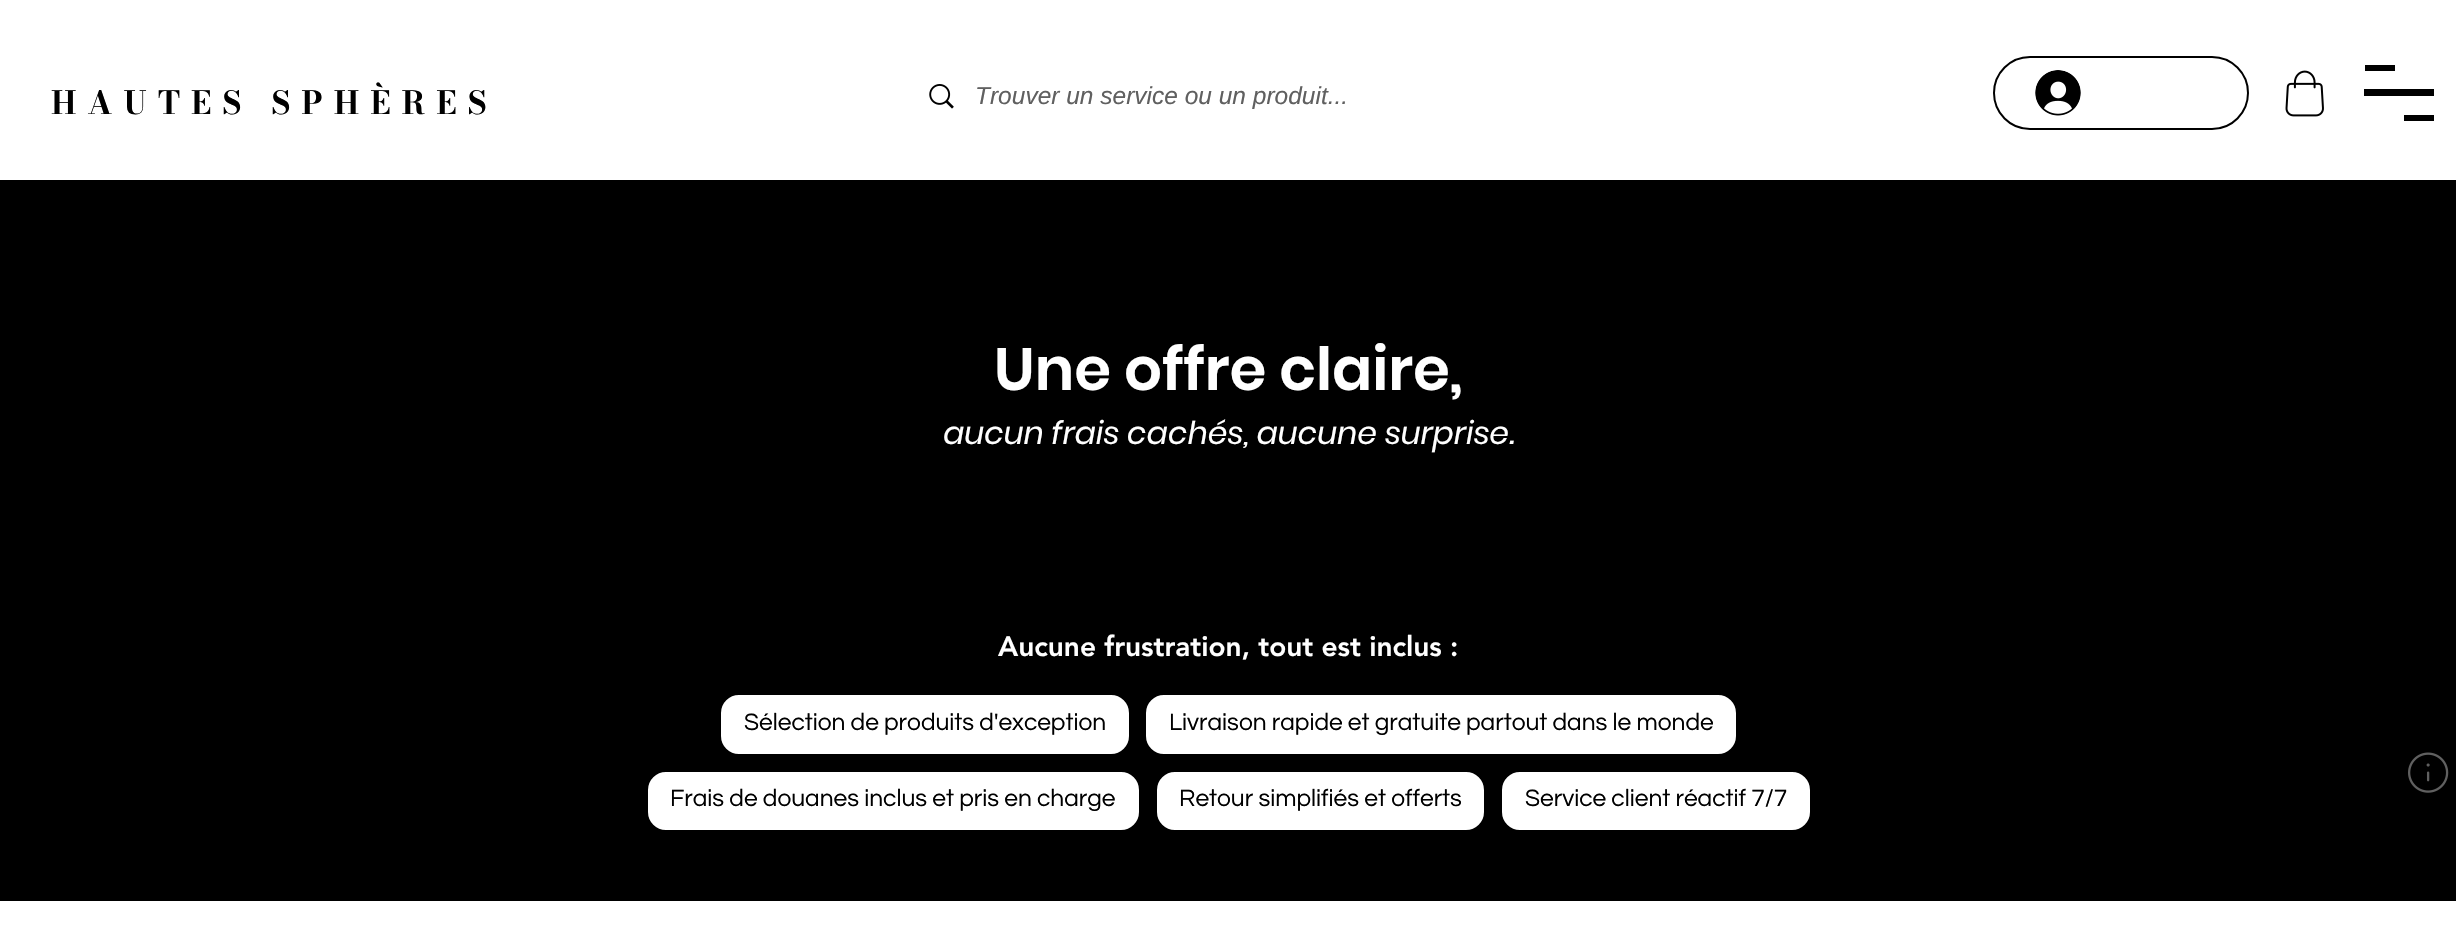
void draw(SkCanvas* canvas) {
    SkPaint paint;
    paint.setAntiAlias(true);
    auto face = [&](const char* family, int weight, float size, bool italic = false) {
        SkFontStyle style(weight, SkFontStyle::kNormal_Width,
            italic ? SkFontStyle::kItalic_Slant : SkFontStyle::kUpright_Slant);
        SkFont result(fontMgr->matchFamilyStyle(family, style), size);
        result.setSubpixel(true);
        return result;
    };
    auto write = [&](const char* s, float x, float y, const SkFont& font, SkColor color) {
        SkPaint ink(SkColor4f::FromColor(color));
        ink.setAntiAlias(true);
        canvas->drawString(s, x, y, font, ink);
    };
    auto writeSpaced = [&](const char* s, float x, float y, const SkFont& font, const SkPaint& ink, float letter, float word) {
        std::vector<SkGlyphID> glyphs(font.countText(s, strlen(s), SkTextEncoding::kUTF8));
        std::vector<float> xs(glyphs.size());
        font.textToGlyphs(s, strlen(s), SkTextEncoding::kUTF8, glyphs);
        font.getXPos(glyphs, xs, x);
        float extra = 0;
        for (size_t i = 0; i < glyphs.size(); i++) {
            xs[i] += extra;
            extra += letter + word * (glyphs[i] == font.unicharToGlyph(' '));
        }
        canvas->drawTextBlob(SkTextBlob::MakeFromPosHGlyphs(glyphs, xs, y, font), 0, 0, ink);
    };
    auto block = [&](float x, float y, float w, float h, SkColor color) {
        SkPaint ink(SkColor4f::FromColor(color));
        ink.setAntiAlias(true);
        canvas->drawRect(SkRect::MakeXYWH(x, y, w, h), ink);
    };
    auto paste = [&](const char* path, float x, float y, float w, float h) {
        auto image = SkImages::DeferredFromEncodedData(SkData::MakeFromFileName(path));
        canvas->drawImageRect(image, SkRect::MakeXYWH(x, y, w, h), SkSamplingOptions());
    };
    canvas->clear(SK_ColorWHITE);
    auto kFont1 = face("Bodoni Moda", 700, 31.5f);
    paint.setColor(SK_ColorBLACK);
    writeSpaced("HAUTES SPHÈRES", 51, 114, kFont1, paint, 11, 0);
    paste("pic1.png", 929, 84, 25, 25);
    auto kFont2 = face("Liberation Sans", 400, 24.5f, true);
    write("Trouver un service ou un produit...", 975, 104, kFont2, SkColorSetRGB(96, 96, 96));
    paint.setStyle(SkPaint::kStroke_Style);
    paint.setStrokeWidth(2);
    canvas->drawRoundRect(SkRect::MakeXYWH(1994, 57, 254, 72), 36, 36, paint);
    paste("pic2.png", 2035, 70, 46, 46);
    block(2365, 65, 30, 6, SK_ColorBLACK);
    block(2404, 115, 30, 6, SK_ColorBLACK);
    block(2364, 89, 70, 7, SK_ColorBLACK);
    paste("pic3.png", 2285, 70, 39, 47);
    block(0, 180, 2456, 721, SK_ColorBLACK);
    auto kFont3 = face("Poppins", 600, 59.5f);
    write("Une offre claire,", 994, 390, kFont3, SK_ColorWHITE);
    auto kFont4 = face("Poppins", 400, 31.5f, true);
    write("aucun frais cachés, aucune surprise.", 943, 444, kFont4, SK_ColorWHITE);
    auto kFont5 = face("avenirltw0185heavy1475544", 900, 28);
    write("Aucune frustration, tout est inclus :", 998, 656, kFont5, SK_ColorWHITE);
    paint.setStyle(SkPaint::kFill_Style);
    paint.setColor(SK_ColorWHITE);
    canvas->drawRoundRect(SkRect::MakeXYWH(722, 696, 406, 57), 17, 17, paint);
    paint.setStyle(SkPaint::kStroke_Style);
    canvas->drawRoundRect(SkRect::MakeXYWH(722, 696, 406, 57), 17, 17, paint);
    auto kFont6 = face("Questrial", 400, 24.5f);
    write("Sélection de produits d'exception", 744, 730, kFont6, SK_ColorBLACK);
    paint.setStyle(SkPaint::kFill_Style);
    canvas->drawRoundRect(SkRect::MakeXYWH(1147, 696, 588, 57), 17, 17, paint);
    paint.setStyle(SkPaint::kStroke_Style);
    canvas->drawRoundRect(SkRect::MakeXYWH(1147, 696, 588, 57), 17, 17, paint);
    write("Livraison rapide et gratuite partout dans le monde", 1169, 730, kFont6, SK_ColorBLACK);
    paint.setStyle(SkPaint::kFill_Style);
    canvas->drawRoundRect(SkRect::MakeXYWH(649, 773, 489, 56), 17, 17, paint);
    paint.setStyle(SkPaint::kStroke_Style);
    canvas->drawRoundRect(SkRect::MakeXYWH(649, 773, 489, 56), 17, 17, paint);
    write("Frais de douanes inclus et pris en charge", 670, 806, kFont6, SK_ColorBLACK);
    paint.setStyle(SkPaint::kFill_Style);
    canvas->drawRoundRect(SkRect::MakeXYWH(1158, 773, 325, 56), 17, 17, paint);
    paint.setStyle(SkPaint::kStroke_Style);
    canvas->drawRoundRect(SkRect::MakeXYWH(1158, 773, 325, 56), 17, 17, paint);
    write("Retour simplifiés et offerts", 1179, 806, kFont6, SK_ColorBLACK);
    paint.setStyle(SkPaint::kFill_Style);
    canvas->drawRoundRect(SkRect::MakeXYWH(1503, 773, 306, 56), 17, 17, paint);
    paint.setStyle(SkPaint::kStroke_Style);
    canvas->drawRoundRect(SkRect::MakeXYWH(1503, 773, 306, 56), 17, 17, paint);
    write("Service client réactif 7/7", 1525, 806, kFont6, SK_ColorBLACK);
    paste("pic4.png", 2408, 752, 41, 41);
}
